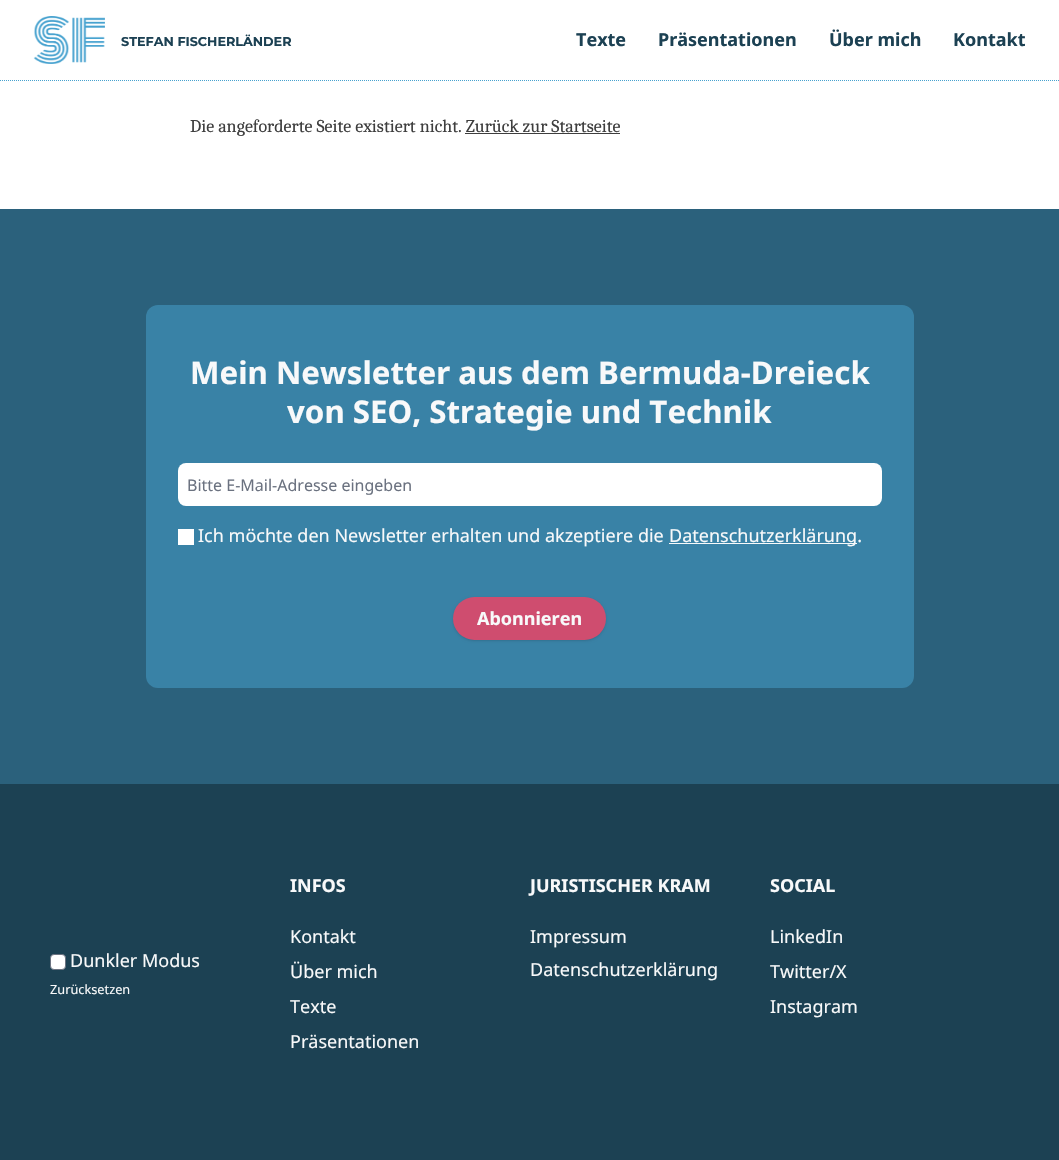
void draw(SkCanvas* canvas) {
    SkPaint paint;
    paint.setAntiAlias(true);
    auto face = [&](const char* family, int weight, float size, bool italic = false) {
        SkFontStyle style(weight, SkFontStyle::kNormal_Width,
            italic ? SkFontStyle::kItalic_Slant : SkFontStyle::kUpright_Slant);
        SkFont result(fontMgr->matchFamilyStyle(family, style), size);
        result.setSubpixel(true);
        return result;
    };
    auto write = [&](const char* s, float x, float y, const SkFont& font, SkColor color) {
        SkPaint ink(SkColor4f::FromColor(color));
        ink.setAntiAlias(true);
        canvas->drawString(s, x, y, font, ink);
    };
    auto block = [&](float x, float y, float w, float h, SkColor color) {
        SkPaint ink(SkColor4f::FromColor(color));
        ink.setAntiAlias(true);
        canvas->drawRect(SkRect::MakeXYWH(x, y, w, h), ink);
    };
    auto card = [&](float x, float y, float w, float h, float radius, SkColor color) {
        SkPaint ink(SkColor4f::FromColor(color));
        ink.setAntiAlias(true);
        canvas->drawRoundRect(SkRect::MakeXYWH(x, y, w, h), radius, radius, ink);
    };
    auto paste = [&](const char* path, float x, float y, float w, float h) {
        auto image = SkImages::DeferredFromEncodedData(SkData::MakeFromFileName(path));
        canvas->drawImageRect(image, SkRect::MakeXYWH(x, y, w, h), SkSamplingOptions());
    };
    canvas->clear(SK_ColorWHITE);
    paint.setStyle(SkPaint::kStroke_Style);
    paint.setStrokeWidth(1);
    paint.setColor(SkColorSetRGB(71, 162, 207));
    paint.setPathEffect(SkDashPathEffect::Make({{1, 1}}, 0));
    canvas->drawPath(SkPathBuilder().moveTo(0, 80.5f).lineTo(1059, 80.5f).detach(), paint);
    paint.setPathEffect(nullptr);
    paste("pic1.png", 33, 16, 72, 48);
    auto kFont1 = face("Montserrat", 700, 12.75f);
    write("STEFAN FISCHERLÄNDER", 121, 46, kFont1, SkColorSetRGB(28, 65, 83));
    auto kFont2 = face("Noto Sans", 700, 18);
    write("Texte", 576, 46, kFont2, SkColorSetRGB(28, 65, 83));
    write("Präsentationen", 658, 46, kFont2, SkColorSetRGB(28, 65, 83));
    write("Über mich", 829, 46, kFont2, SkColorSetRGB(28, 65, 83));
    write("Kontakt", 953, 46, kFont2, SkColorSetRGB(28, 65, 83));
    auto kFont3 = face("Caladea", 400, 18);
    write("Die angeforderte Seite existiert nicht. Zurück zur Startseite", 190, 132, kFont3, SkColorSetRGB(62, 62, 62));
    block(465, 133, 155, 1, SkColorSetRGB(62, 62, 62));
    block(0, 209, 1059, 575, SkColorSetRGB(43, 97, 124));
    card(146, 305, 768, 383, 12, SkColorSetRGB(57, 130, 166));
    auto kFont4 = face("Noto Sans", 700, 31.25f);
    write("Mein Newsletter aus dem Bermuda-Dreieck", 190, 384, kFont4, SkColorSetRGB(248, 249, 250));
    write("von SEO, Strategie und Technik", 287, 423, kFont4, SkColorSetRGB(248, 249, 250));
    card(178, 463, 704, 43, 8, SK_ColorWHITE);
    auto kFont5 = face("Noto Sans", 400, 16);
    write("Bitte E-Mail-Adresse eingeben", 187, 491, kFont5, SkColorSetRGB(107, 114, 128));
    block(178, 529, 16, 16, SK_ColorWHITE);
    auto kFont6 = face("Noto Sans", 400, 18);
    write("Ich möchte den Newsletter erhalten und akzeptiere die", 198, 542, kFont6, SkColorSetRGB(248, 249, 250));
    block(669, 543, 188, 1, SkColorSetRGB(248, 249, 250));
    write("Datenschutzerklärung.", 669, 542, kFont6, SkColorSetRGB(248, 249, 250));
    paint.setStyle(SkPaint::kFill_Style);
    paint.setColor(SkColorSetARGB(26, 0, 0, 0));
    paint.setMaskFilter(SkMaskFilter::MakeBlur(kNormal_SkBlurStyle, 1));
    canvas->drawRoundRect(SkRect::MakeXYWH(454, 599, 151, 41), 20.5f, 20.5f, paint);
    paint.setMaskFilter(nullptr);
    paint.setMaskFilter(SkMaskFilter::MakeBlur(kNormal_SkBlurStyle, 1.5f));
    canvas->drawRoundRect(SkRect::MakeXYWH(453, 598, 153, 43), 21.5f, 21.5f, paint);
    paint.setMaskFilter(nullptr);
    card(453, 597, 153, 43, 21.5f, SkColorSetRGB(207, 77, 111));
    write("Abonnieren", 477, 625, kFont2, SkColorSetRGB(248, 249, 250));
    block(0, 784, 1059, 376, SkColorSetRGB(28, 65, 83));
    paint.setColor(SK_ColorWHITE);
    canvas->drawRoundRect(SkRect::MakeXYWH(50.5f, 954.5f, 15, 15), 3.5f, 3.5f, paint);
    paint.setStyle(SkPaint::kStroke_Style);
    paint.setColor(SkColorSetRGB(107, 114, 128));
    canvas->drawRoundRect(SkRect::MakeXYWH(50.5f, 954.5f, 15, 15), 3.5f, 3.5f, paint);
    write("Dunkler Modus", 70, 967, kFont6, SkColorSetRGB(248, 249, 250));
    auto kFont7 = face("Noto Sans", 400, 12.75f);
    write("Zurücksetzen", 50, 994, kFont7, SkColorSetRGB(248, 249, 250));
    write("INFOS", 290, 892, kFont2, SkColorSetRGB(248, 249, 250));
    write("Kontakt", 290, 943, kFont6, SkColorSetRGB(248, 249, 250));
    write("Über mich", 290, 978, kFont6, SkColorSetRGB(248, 249, 250));
    write("Texte", 290, 1013, kFont6, SkColorSetRGB(248, 249, 250));
    write("Präsentationen", 290, 1048, kFont6, SkColorSetRGB(248, 249, 250));
    write("JURISTISCHER KRAM", 530, 892, kFont2, SkColorSetRGB(248, 249, 250));
    write("Impressum", 530, 943, kFont6, SkColorSetRGB(248, 249, 250));
    write("Datenschutzerklärung", 530, 976, kFont6, SkColorSetRGB(248, 249, 250));
    write("SOCIAL", 770, 892, kFont2, SkColorSetRGB(248, 249, 250));
    write("LinkedIn", 770, 943, kFont6, SkColorSetRGB(248, 249, 250));
    write("Twitter/X", 770, 978, kFont6, SkColorSetRGB(248, 249, 250));
    write("Instagram", 770, 1013, kFont6, SkColorSetRGB(248, 249, 250));
}
